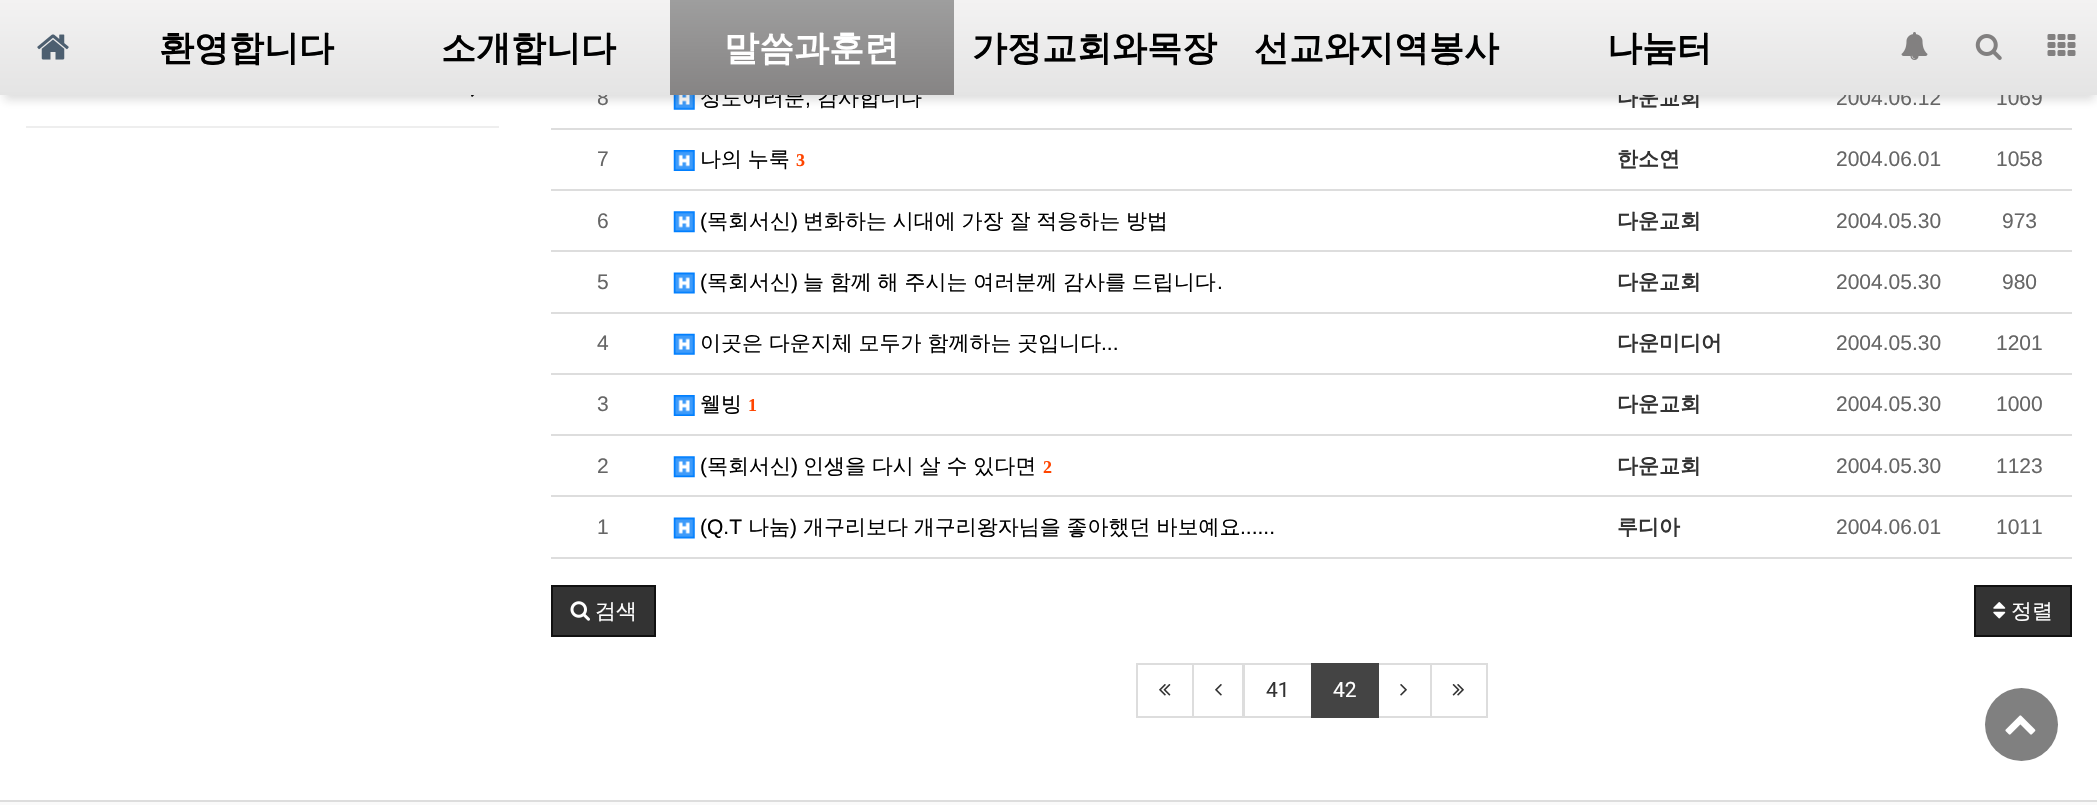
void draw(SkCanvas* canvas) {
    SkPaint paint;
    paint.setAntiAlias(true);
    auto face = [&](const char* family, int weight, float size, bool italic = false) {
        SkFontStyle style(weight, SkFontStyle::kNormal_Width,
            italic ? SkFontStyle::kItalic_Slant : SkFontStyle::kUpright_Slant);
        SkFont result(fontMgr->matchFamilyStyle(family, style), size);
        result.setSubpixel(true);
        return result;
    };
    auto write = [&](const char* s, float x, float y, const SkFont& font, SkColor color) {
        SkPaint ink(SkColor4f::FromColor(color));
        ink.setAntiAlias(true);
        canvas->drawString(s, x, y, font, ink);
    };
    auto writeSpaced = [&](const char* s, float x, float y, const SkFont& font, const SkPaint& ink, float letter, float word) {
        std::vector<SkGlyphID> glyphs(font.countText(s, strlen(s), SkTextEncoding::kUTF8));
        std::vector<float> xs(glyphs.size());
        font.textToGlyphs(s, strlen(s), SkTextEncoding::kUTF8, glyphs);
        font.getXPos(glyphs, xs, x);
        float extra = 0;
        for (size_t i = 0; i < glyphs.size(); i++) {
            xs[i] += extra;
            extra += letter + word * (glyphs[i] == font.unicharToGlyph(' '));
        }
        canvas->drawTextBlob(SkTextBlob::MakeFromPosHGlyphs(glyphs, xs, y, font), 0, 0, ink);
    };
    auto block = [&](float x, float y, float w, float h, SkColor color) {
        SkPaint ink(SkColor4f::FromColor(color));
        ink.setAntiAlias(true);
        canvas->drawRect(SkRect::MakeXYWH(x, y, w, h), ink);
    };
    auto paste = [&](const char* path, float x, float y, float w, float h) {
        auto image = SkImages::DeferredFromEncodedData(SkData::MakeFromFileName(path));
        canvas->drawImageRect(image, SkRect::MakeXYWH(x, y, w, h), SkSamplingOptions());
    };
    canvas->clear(SK_ColorWHITE);
    paste("pic5.png", 471, 95, 4, 2);
    paste("pic6.png", 673, 95, 22, 15);
    paint.setColor(SkColorSetARGB(38, 25, 25, 25));
    paint.setMaskFilter(SkMaskFilter::MakeBlur(kNormal_SkBlurStyle, 4.5f));
    canvas->drawRect(SkRect::MakeXYWH(4, 12, 2091, 88), paint);
    paint.setMaskFilter(nullptr);
    auto kFont1 = face("Liberation Sans", 400, 21);
    write("8", 597, 105, kFont1, SkColorSetRGB(102, 102, 102));
    auto kFont2 = face("WenQuanYi Zen Hei", 500, 21);
    write("성도여러분", 700, 105, kFont2, SK_ColorBLACK);
    write("감사합니다", 817, 105, kFont2, SK_ColorBLACK);
    auto kFont3 = face("WenQuanYi Zen Hei", 700, 21);
    write("다운교회", 1617, 105, kFont3, SkColorSetRGB(51, 51, 51));
    write("2004.06.12", 1836, 105, kFont1, SkColorSetRGB(102, 102, 102));
    write("1069", 1996, 105, kFont1, SkColorSetRGB(102, 102, 102));
    {
        const SkColor colors[] = {SkColorSetRGB(243, 242, 242), SkColorSetRGB(228, 228, 228)};
        const float stops[] = {0, 1};
        const SkPoint ends[] = {{1049, 0}, {1049, 95}};
        paint.setShader(SkGradientShader::MakeLinear(ends, colors, stops, 2, SkTileMode::kClamp));
        paint.setAlpha(255);
    }
    canvas->drawRect(SkRect::MakeXYWH(0, 0, 2097, 95), paint);
    paste("pic1.png", 37, 34, 32, 26);
    auto kFont4 = face("WenQuanYi Zen Hei", 700, 35);
    write("환영합니다", 159, 60, kFont4, SK_ColorBLACK);
    write("소개합니다", 441, 60, kFont4, SK_ColorBLACK);
    {
        const SkColor colors[] = {SkColorSetRGB(158, 158, 158), SkColorSetRGB(134, 132, 132)};
        const float stops[] = {0, 1};
        const SkPoint ends[] = {{812, 0}, {812, 95}};
        paint.setShader(SkGradientShader::MakeLinear(ends, colors, stops, 2, SkTileMode::kClamp));
        paint.setAlpha(255);
    }
    canvas->drawRect(SkRect::MakeXYWH(670, 0, 284, 95), paint);
    write("말씀과훈련", 724, 60, kFont4, SK_ColorWHITE);
    write("가정교회와목장", 972, 60, kFont4, SK_ColorBLACK);
    write("선교와지역봉사", 1254, 60, kFont4, SK_ColorBLACK);
    write("나눔터", 1607, 60, kFont4, SK_ColorBLACK);
    paste("pic2.png", 1901, 32, 27, 28);
    paste("pic3.png", 1975, 34, 27, 26);
    paste("pic4.png", 2047, 34, 29, 22);
    block(26, 126, 473, 2, SkColorSetRGB(238, 238, 238));
    block(551, 128, 1521, 2, SkColorSetRGB(221, 221, 221));
    write(",", 805, 105, kFont1, SK_ColorBLACK);
    block(551, 189, 1521, 2, SkColorSetRGB(221, 221, 221));
    write("7", 597, 166, kFont1, SkColorSetRGB(102, 102, 102));
    paste("pic7.png", 673, 150, 22, 21);
    paint.setShader(nullptr);
    paint.setColor(SK_ColorBLACK);
    writeSpaced("나의 누룩", 700, 166, kFont2, paint, 0, -0.5f);
    auto kFont5 = face("Liberation Serif", 700, 18);
    paint.setColor(SkColorSetRGB(255, 69, 0));
    writeSpaced("3", 796, 166, kFont5, paint, -2, 0);
    write("한소연", 1617, 166, kFont3, SkColorSetRGB(51, 51, 51));
    write("2004.06.01", 1836, 166, kFont1, SkColorSetRGB(102, 102, 102));
    write("1058", 1996, 166, kFont1, SkColorSetRGB(102, 102, 102));
    block(551, 250, 1521, 2, SkColorSetRGB(221, 221, 221));
    write("6", 597, 228, kFont1, SkColorSetRGB(102, 102, 102));
    paste("pic8.png", 673, 211, 22, 22);
    write("(", 700, 228, kFont1, SK_ColorBLACK);
    write("목회서신", 707, 228, kFont2, SK_ColorBLACK);
    write(")", 791, 228, kFont1, SK_ColorBLACK);
    paint.setColor(SK_ColorBLACK);
    writeSpaced("변화하는 시대에 가장 잘 적응하는 방법", 803, 228, kFont2, paint, 0, -0.5f);
    write("다운교회", 1617, 228, kFont3, SkColorSetRGB(51, 51, 51));
    write("2004.05.30", 1836, 228, kFont1, SkColorSetRGB(102, 102, 102));
    write("973", 2002, 228, kFont1, SkColorSetRGB(102, 102, 102));
    block(551, 312, 1521, 2, SkColorSetRGB(221, 221, 221));
    write("5", 597, 289, kFont1, SkColorSetRGB(102, 102, 102));
    paste("pic9.png", 673, 272, 22, 22);
    write("(", 700, 289, kFont1, SK_ColorBLACK);
    write("목회서신", 707, 289, kFont2, SK_ColorBLACK);
    write(")", 791, 289, kFont1, SK_ColorBLACK);
    writeSpaced("늘 함께 해 주시는 여러분께 감사를 드립니다", 803, 289, kFont2, paint, 0, -0.5f);
    write(".", 1217, 289, kFont1, SK_ColorBLACK);
    write("다운교회", 1617, 289, kFont3, SkColorSetRGB(51, 51, 51));
    write("2004.05.30", 1836, 289, kFont1, SkColorSetRGB(102, 102, 102));
    write("980", 2002, 289, kFont1, SkColorSetRGB(102, 102, 102));
    block(551, 373, 1521, 2, SkColorSetRGB(221, 221, 221));
    write("4", 597, 350, kFont1, SkColorSetRGB(102, 102, 102));
    paste("pic10.png", 673, 333, 22, 22);
    writeSpaced("이곳은 다운지체 모두가 함께하는 곳입니다", 700, 350, kFont2, paint, 0, -0.5f);
    write("...", 1101, 350, kFont1, SK_ColorBLACK);
    write("다운미디어", 1617, 350, kFont3, SkColorSetRGB(51, 51, 51));
    write("2004.05.30", 1836, 350, kFont1, SkColorSetRGB(102, 102, 102));
    write("1201", 1996, 350, kFont1, SkColorSetRGB(102, 102, 102));
    block(551, 434, 1521, 2, SkColorSetRGB(221, 221, 221));
    write("3", 597, 411, kFont1, SkColorSetRGB(102, 102, 102));
    paste("pic7.png", 673, 395, 22, 21);
    write("웰빙", 700, 411, kFont2, SK_ColorBLACK);
    paint.setColor(SkColorSetRGB(255, 69, 0));
    writeSpaced("1", 748, 411, kFont5, paint, -2, 0);
    write("다운교회", 1617, 411, kFont3, SkColorSetRGB(51, 51, 51));
    write("2004.05.30", 1836, 411, kFont1, SkColorSetRGB(102, 102, 102));
    write("1000", 1996, 411, kFont1, SkColorSetRGB(102, 102, 102));
    block(551, 495, 1521, 2, SkColorSetRGB(221, 221, 221));
    write("2", 597, 473, kFont1, SkColorSetRGB(102, 102, 102));
    paste("pic8.png", 673, 456, 22, 22);
    write("(", 700, 473, kFont1, SK_ColorBLACK);
    write("목회서신", 707, 473, kFont2, SK_ColorBLACK);
    write(")", 791, 473, kFont1, SK_ColorBLACK);
    paint.setColor(SK_ColorBLACK);
    writeSpaced("인생을 다시 살 수 있다면", 803, 473, kFont2, paint, 0, -0.5f);
    paint.setColor(SkColorSetRGB(255, 69, 0));
    writeSpaced("2", 1043, 473, kFont5, paint, -2, 0);
    write("다운교회", 1617, 473, kFont3, SkColorSetRGB(51, 51, 51));
    write("2004.05.30", 1836, 473, kFont1, SkColorSetRGB(102, 102, 102));
    write("1123", 1996, 473, kFont1, SkColorSetRGB(102, 102, 102));
    block(551, 557, 1521, 2, SkColorSetRGB(221, 221, 221));
    write("1", 597, 534, kFont1, SkColorSetRGB(102, 102, 102));
    paste("pic9.png", 673, 517, 22, 22);
    write("(Q.T", 700, 534, kFont1, SK_ColorBLACK);
    write("나눔", 748, 534, kFont2, SK_ColorBLACK);
    write(")", 790, 534, kFont1, SK_ColorBLACK);
    paint.setColor(SK_ColorBLACK);
    writeSpaced("개구리보다 개구리왕자님을 좋아했던 바보예요", 803, 534, kFont2, paint, 0, -0.5f);
    write("......", 1240, 534, kFont1, SK_ColorBLACK);
    write("루디아", 1617, 534, kFont3, SkColorSetRGB(51, 51, 51));
    write("2004.06.01", 1836, 534, kFont1, SkColorSetRGB(102, 102, 102));
    write("1011", 1996, 534, kFont1, SkColorSetRGB(102, 102, 102));
    paint.setColor(SkColorSetRGB(51, 51, 51));
    canvas->drawRect(SkRect::MakeXYWH(552, 586, 103, 50), paint);
    paint.setStyle(SkPaint::kStroke_Style);
    paint.setStrokeWidth(2);
    paint.setColor(SkColorSetRGB(17, 17, 17));
    canvas->drawRect(SkRect::MakeXYWH(552, 586, 103, 50), paint);
    paste("pic11.png", 570, 601, 20, 20);
    write("검색", 595, 618, kFont2, SK_ColorWHITE);
    paint.setStyle(SkPaint::kFill_Style);
    paint.setColor(SkColorSetRGB(51, 51, 51));
    canvas->drawRect(SkRect::MakeXYWH(1975, 586, 96, 50), paint);
    paint.setStyle(SkPaint::kStroke_Style);
    paint.setColor(SkColorSetRGB(17, 17, 17));
    canvas->drawRect(SkRect::MakeXYWH(1975, 586, 96, 50), paint);
    paste("pic12.png", 1993, 602, 13, 17);
    write("정렬", 2011, 618, kFont2, SK_ColorWHITE);
    paint.setColor(SkColorSetRGB(221, 221, 221));
    canvas->drawRect(SkRect::MakeXYWH(1137, 664, 56, 53), paint);
    paste("pic13.png", 1159, 684, 12, 12);
    canvas->drawRect(SkRect::MakeXYWH(1193, 664, 50, 53), paint);
    paste("pic14.png", 1215, 684, 7, 12);
    canvas->drawRect(SkRect::MakeXYWH(1244, 664, 68, 53), paint);
    auto kFont6 = face("Roboto", 400, 21);
    write("41", 1266, 697, kFont6, SkColorSetRGB(51, 51, 51));
    canvas->drawRect(SkRect::MakeXYWH(1378, 664, 53, 53), paint);
    block(1311, 663, 68, 55, SkColorSetRGB(68, 68, 68));
    write("42", 1333, 697, kFont6, SK_ColorWHITE);
    paste("pic15.png", 1400, 684, 7, 12);
    canvas->drawRect(SkRect::MakeXYWH(1431, 664, 56, 53), paint);
    paste("pic16.png", 1452, 684, 12, 12);
    block(0, 802, 2097, 3, SkColorSetRGB(250, 250, 250));
    block(0, 800, 2097, 2, SkColorSetRGB(221, 221, 221));
    paint.setStyle(SkPaint::kFill_Style);
    paint.setColor(SkColorSetRGB(128, 128, 128));
    canvas->drawCircle(2021.5f, 724.5f, 36.5f, paint);
    paste("pic17.png", 2005, 715, 31, 20);
}
